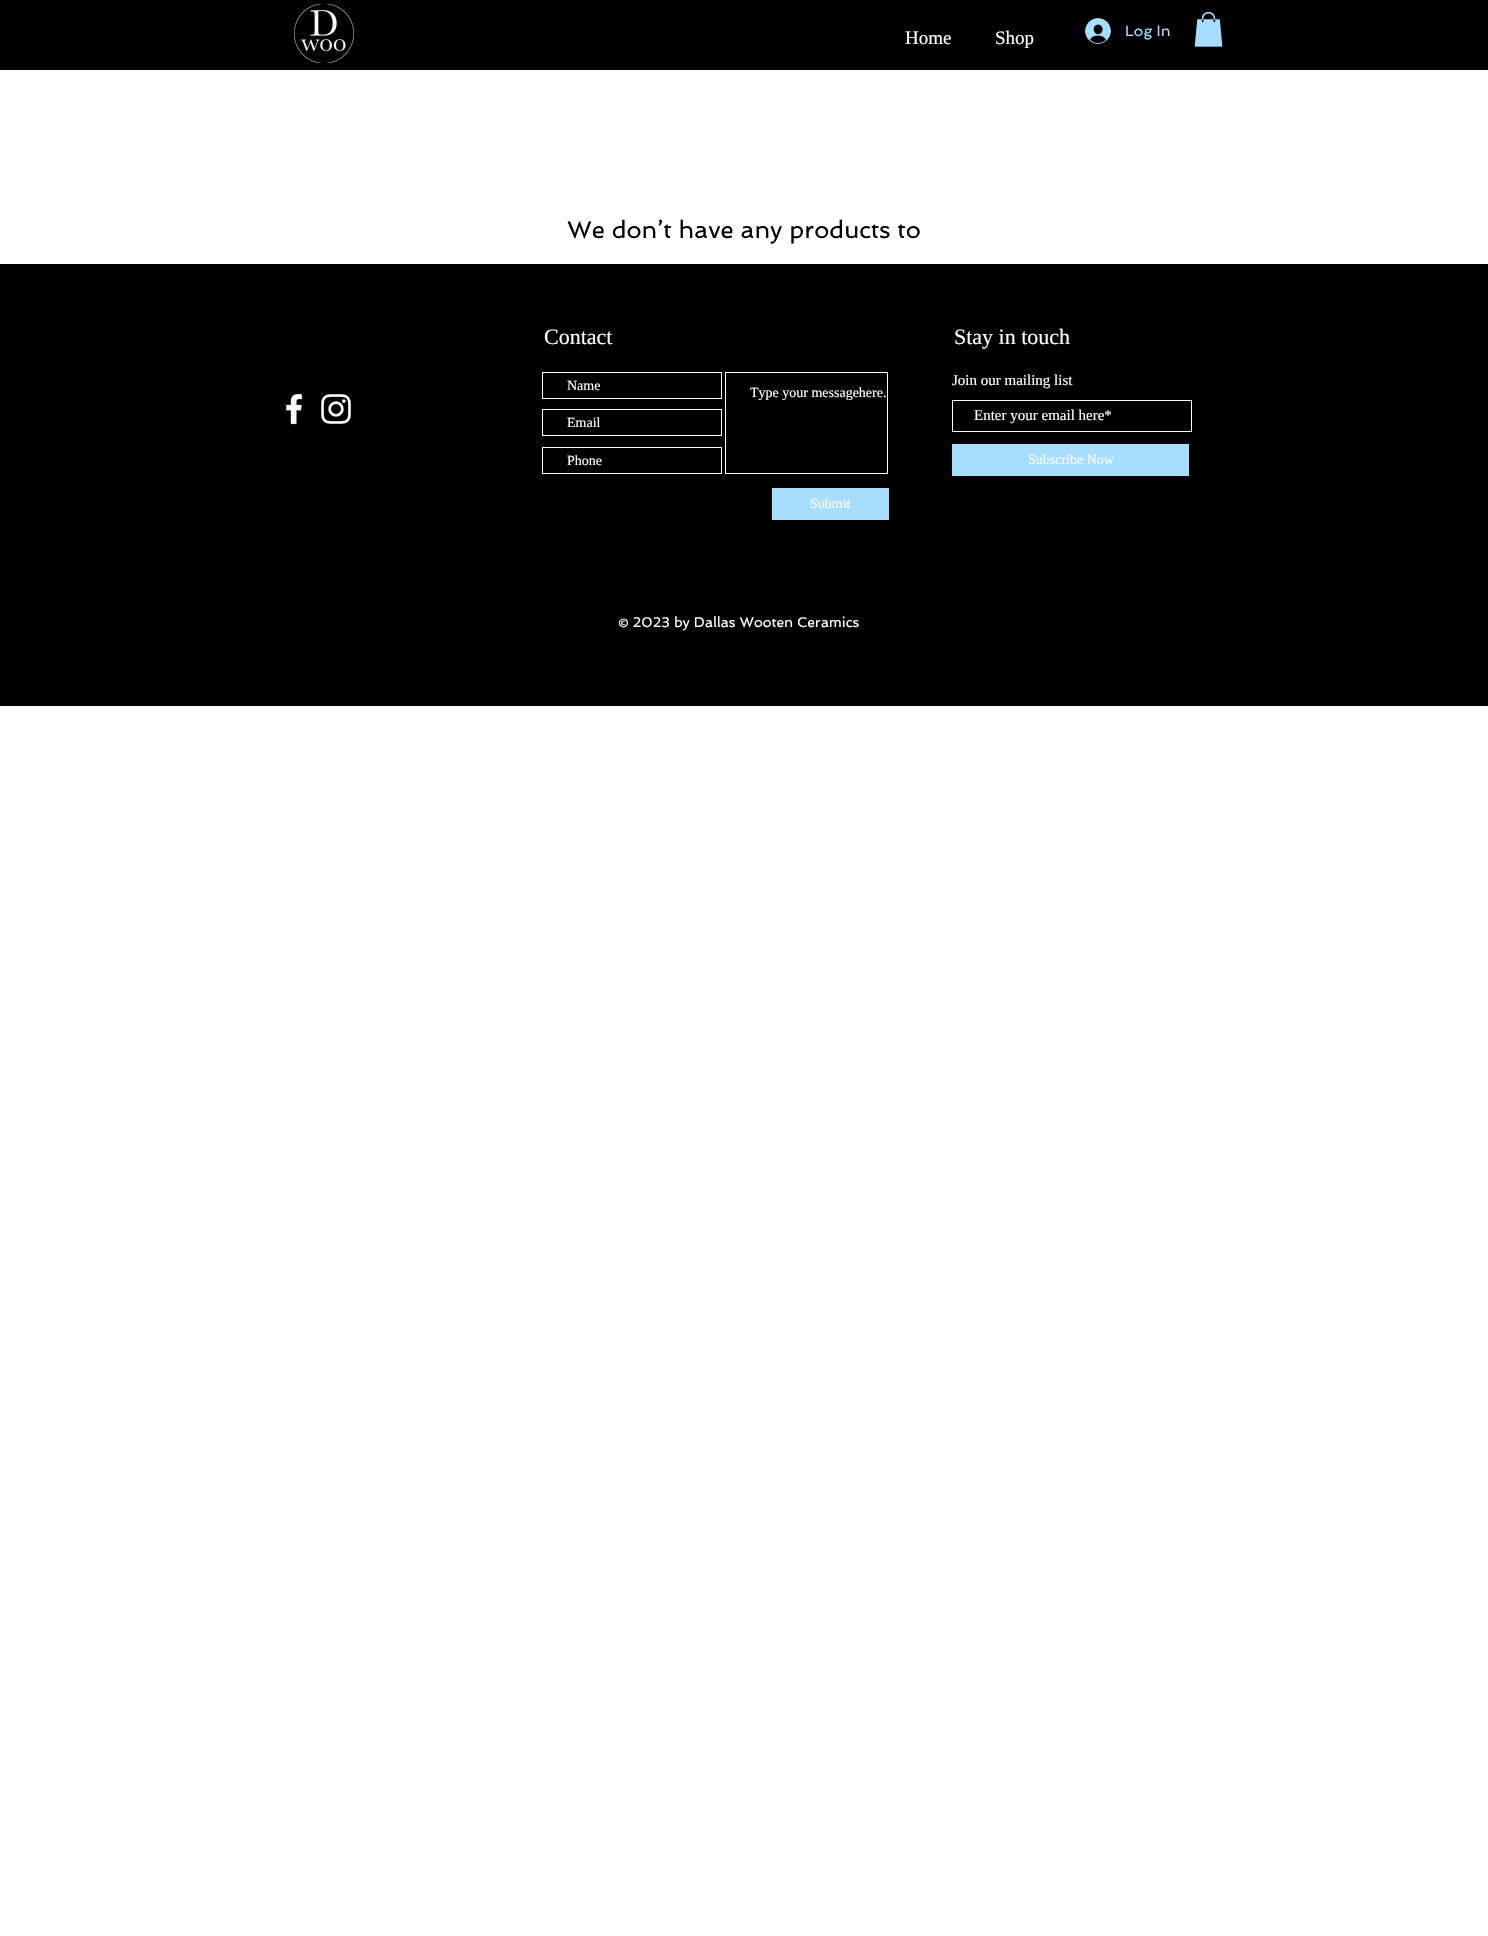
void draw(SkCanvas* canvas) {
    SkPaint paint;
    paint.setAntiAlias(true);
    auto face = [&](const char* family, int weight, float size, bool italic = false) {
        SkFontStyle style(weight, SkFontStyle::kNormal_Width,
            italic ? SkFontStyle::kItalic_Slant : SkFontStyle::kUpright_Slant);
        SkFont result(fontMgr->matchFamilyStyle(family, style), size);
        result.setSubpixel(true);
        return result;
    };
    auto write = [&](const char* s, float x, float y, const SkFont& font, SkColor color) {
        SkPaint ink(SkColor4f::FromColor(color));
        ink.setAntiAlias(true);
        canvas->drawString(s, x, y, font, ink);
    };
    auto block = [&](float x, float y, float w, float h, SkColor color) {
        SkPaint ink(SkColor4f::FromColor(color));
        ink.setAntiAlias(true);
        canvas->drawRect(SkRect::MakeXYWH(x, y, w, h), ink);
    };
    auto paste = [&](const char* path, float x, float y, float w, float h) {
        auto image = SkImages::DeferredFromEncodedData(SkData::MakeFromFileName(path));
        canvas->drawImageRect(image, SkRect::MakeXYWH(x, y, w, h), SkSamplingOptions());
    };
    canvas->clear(SK_ColorWHITE);
    block(0, 0, 1488, 70, SK_ColorBLACK);
    paste("pic1.png", 294, 4, 60, 59);
    auto kFont1 = face("Liberation Serif", 400, 19);
    write("Home", 905, 44, kFont1, SK_ColorWHITE);
    write("Shop", 995, 44, kFont1, SK_ColorWHITE);
    paste("pic2.png", 1085, 18, 26, 26);
    auto kFont2 = face("Spinnaker", 400, 15);
    write("Log In", 1125, 36, kFont2, SkColorSetRGB(167, 221, 255));
    paste("pic3.png", 1194, 12, 29, 35);
    auto kFont3 = face("Spinnaker", 400, 24);
    write("We don’t have any products to", 567, 238, kFont3, SK_ColorBLACK);
    block(0, 264, 1488, 442, SK_ColorBLACK);
    auto kFont4 = face("Liberation Serif", 400, 22);
    write("Contact", 544, 344, kFont4, SK_ColorWHITE);
    write("Stay in touch", 954, 344, kFont4, SK_ColorWHITE);
    paste("pic4.png", 286, 393, 17, 32);
    paste("pic5.png", 321, 394, 30, 30);
    paint.setStyle(SkPaint::kStroke_Style);
    paint.setStrokeWidth(1);
    paint.setColor(SK_ColorWHITE);
    canvas->drawRect(SkRect::MakeXYWH(542.5f, 372.5f, 179, 26), paint);
    auto kFont5 = face("Liberation Serif", 400, 14);
    write("Name", 567, 390, kFont5, SK_ColorWHITE);
    canvas->drawRect(SkRect::MakeXYWH(725.5f, 372.5f, 162, 101), paint);
    write("Type your messagehere.", 750, 397, kFont5, SK_ColorWHITE);
    canvas->drawRect(SkRect::MakeXYWH(542.5f, 409.5f, 179, 26), paint);
    write("Email", 567, 427, kFont5, SK_ColorWHITE);
    canvas->drawRect(SkRect::MakeXYWH(542.5f, 447.5f, 179, 26), paint);
    write("Phone", 567, 465, kFont5, SK_ColorWHITE);
    block(772, 488, 117, 32, SkColorSetRGB(167, 221, 255));
    write("Submit", 810, 508, kFont5, SK_ColorWHITE);
    auto kFont6 = face("Liberation Serif", 400, 15);
    write("Join our mailing list", 952, 385, kFont6, SK_ColorWHITE);
    canvas->drawRect(SkRect::MakeXYWH(952.5f, 400.5f, 239, 31), paint);
    write("Enter your email here*", 974, 420, kFont6, SK_ColorWHITE);
    block(952, 444, 237, 32, SkColorSetRGB(167, 221, 255));
    write("Subscribe Now", 1028, 464, kFont5, SK_ColorWHITE);
    auto kFont7 = face("Spinnaker", 400, 14);
    write("© 2023 by Dallas Wooten Ceramics", 618, 627, kFont7, SK_ColorWHITE);
}
